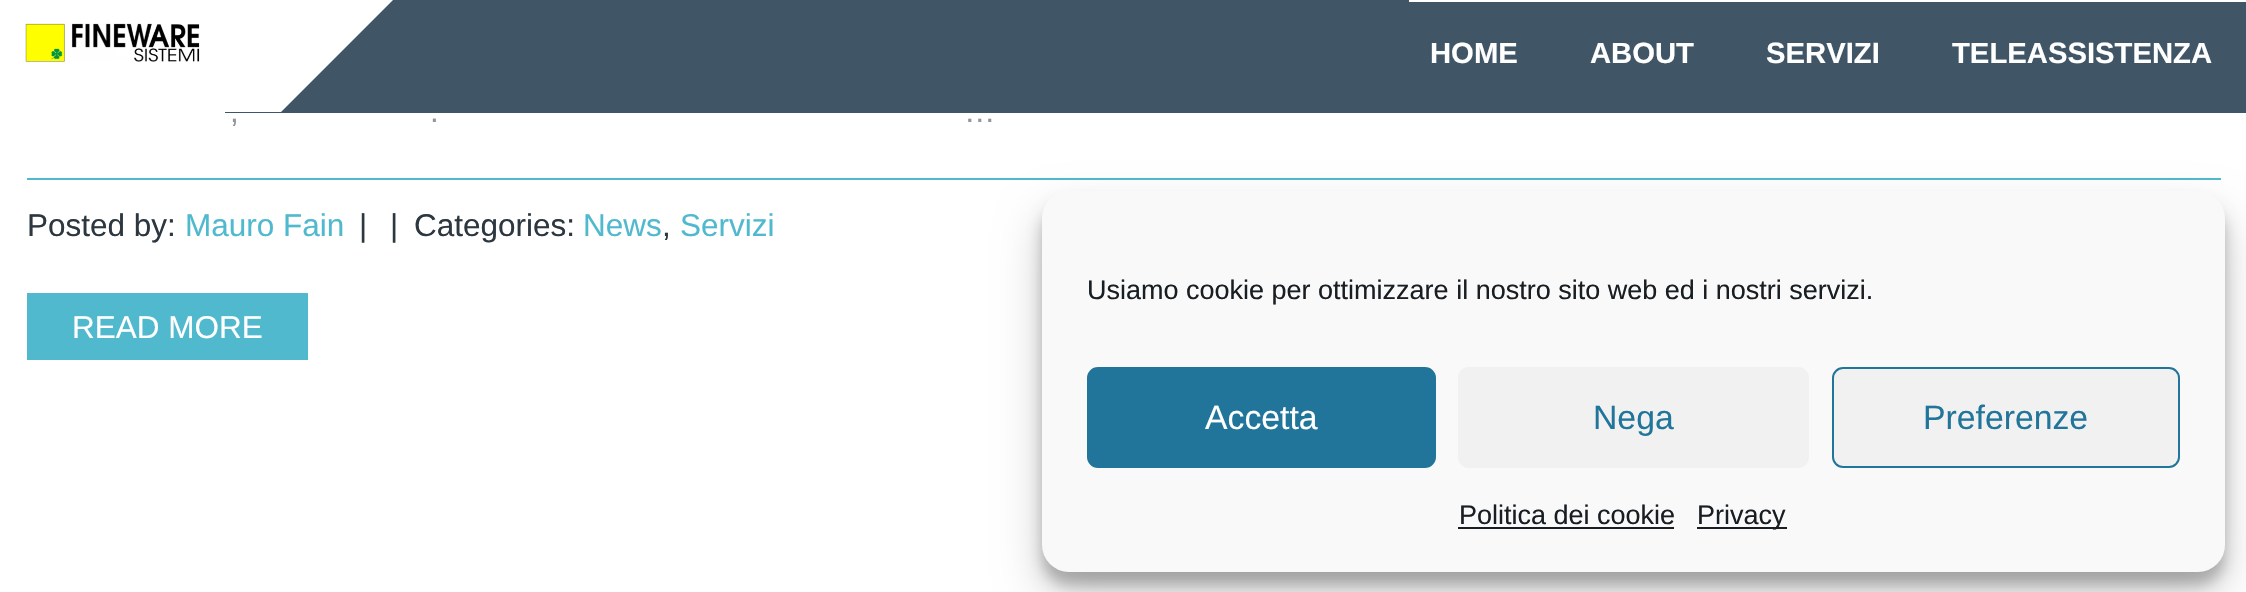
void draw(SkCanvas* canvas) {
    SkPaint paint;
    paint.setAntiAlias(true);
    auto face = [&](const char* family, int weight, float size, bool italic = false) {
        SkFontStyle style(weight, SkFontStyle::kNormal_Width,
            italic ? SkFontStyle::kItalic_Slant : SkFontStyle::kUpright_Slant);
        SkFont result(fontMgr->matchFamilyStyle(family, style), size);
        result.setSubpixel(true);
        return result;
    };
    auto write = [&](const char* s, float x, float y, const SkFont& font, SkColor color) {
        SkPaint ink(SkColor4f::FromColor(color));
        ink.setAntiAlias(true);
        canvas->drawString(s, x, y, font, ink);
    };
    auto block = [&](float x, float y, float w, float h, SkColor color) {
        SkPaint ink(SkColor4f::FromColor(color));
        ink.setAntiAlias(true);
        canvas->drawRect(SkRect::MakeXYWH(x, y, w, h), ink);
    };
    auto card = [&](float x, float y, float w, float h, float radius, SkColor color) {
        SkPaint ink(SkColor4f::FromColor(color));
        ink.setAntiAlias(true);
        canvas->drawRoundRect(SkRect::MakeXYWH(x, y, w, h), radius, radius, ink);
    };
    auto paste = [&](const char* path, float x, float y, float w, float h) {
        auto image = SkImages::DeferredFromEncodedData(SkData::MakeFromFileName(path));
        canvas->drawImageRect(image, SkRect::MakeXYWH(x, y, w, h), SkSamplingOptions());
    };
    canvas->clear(SK_ColorWHITE);
    block(225, 0, 2021, 113, SkColorSetRGB(64, 86, 103));
    paint.setColor(SK_ColorWHITE);
    canvas->drawPath(SkPathBuilder().moveTo(169, 0).lineTo(393, 0).lineTo(281, 112).lineTo(56, 112).close().detach(), paint);
    paste("pic1.png", 25, 23, 175, 39);
    block(1409, 0, 837, 2, SK_ColorWHITE);
    auto kFont1 = face("Liberation Sans", 700, 29.25f);
    write("HOME", 1430, 63, kFont1, SK_ColorWHITE);
    write("ABOUT", 1590, 63, kFont1, SK_ColorWHITE);
    write("SERVIZI", 1766, 63, kFont1, SK_ColorWHITE);
    write("TELEASSISTENZA", 1952, 63, kFont1, SK_ColorWHITE);
    block(27, 178, 2194, 2, SkColorSetRGB(80, 185, 206));
    auto kFont2 = face("Liberation Sans", 400, 31.5f);
    write(",", 230, 122, kFont2, SkColorSetRGB(148, 148, 157));
    write(".", 430, 122, kFont2, SkColorSetRGB(148, 148, 157));
    write("…", 964, 122, kFont2, SkColorSetRGB(148, 148, 157));
    write("Posted by:", 27, 236, kFont2, SkColorSetRGB(44, 55, 64));
    write("Mauro Fain", 185, 236, kFont2, SkColorSetRGB(80, 185, 206));
    write("|", 359, 236, kFont2, SkColorSetRGB(44, 55, 64));
    write("|", 390, 236, kFont2, SkColorSetRGB(44, 55, 64));
    write("Categories:", 414, 236, kFont2, SkColorSetRGB(44, 55, 64));
    write("News", 583, 236, kFont2, SkColorSetRGB(80, 185, 206));
    write(",", 662, 236, kFont2, SkColorSetRGB(44, 55, 64));
    write("Servizi", 680, 236, kFont2, SkColorSetRGB(80, 185, 206));
    block(27, 293, 281, 67, SkColorSetRGB(80, 185, 206));
    write("READ MORE", 72, 338, kFont2, SK_ColorWHITE);
    paint.setColor(SkColorSetARGB(59, 0, 0, 0));
    paint.setMaskFilter(SkMaskFilter::MakeBlur(kNormal_SkBlurStyle, 7));
    canvas->drawRoundRect(SkRect::MakeXYWH(1042, 205, 1183, 380), 27, 27, paint);
    paint.setMaskFilter(nullptr);
    paint.setColor(SkColorSetARGB(48, 0, 0, 0));
    paint.setMaskFilter(SkMaskFilter::MakeBlur(kNormal_SkBlurStyle, 22.5f));
    canvas->drawRoundRect(SkRect::MakeXYWH(1042, 214, 1183, 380), 27, 27, paint);
    paint.setMaskFilter(nullptr);
    card(1042, 191, 1183, 381, 27, SkColorSetRGB(249, 249, 249));
    auto kFont3 = face("Liberation Sans", 400, 27);
    write("Usiamo cookie per ottimizzare il nostro sito web ed i nostri servizi.", 1087, 299, kFont3, SkColorSetRGB(25, 30, 35));
    paint.setColor(SkColorSetRGB(33, 117, 155));
    canvas->drawRoundRect(SkRect::MakeXYWH(1088, 368, 347, 99), 10, 10, paint);
    paint.setStyle(SkPaint::kStroke_Style);
    paint.setStrokeWidth(2);
    canvas->drawRoundRect(SkRect::MakeXYWH(1088, 368, 347, 99), 10, 10, paint);
    auto kFont4 = face("Liberation Sans", 400, 33.75f);
    write("Accetta", 1205, 429, kFont4, SK_ColorWHITE);
    card(1458, 367, 351, 101, 11, SkColorSetRGB(241, 241, 241));
    write("Nega", 1593, 429, kFont4, SkColorSetRGB(33, 117, 155));
    paint.setStyle(SkPaint::kFill_Style);
    paint.setColor(SkColorSetRGB(241, 241, 241));
    canvas->drawRoundRect(SkRect::MakeXYWH(1833, 368, 346, 99), 10, 10, paint);
    paint.setStyle(SkPaint::kStroke_Style);
    paint.setColor(SkColorSetRGB(33, 117, 155));
    canvas->drawRoundRect(SkRect::MakeXYWH(1833, 368, 346, 99), 10, 10, paint);
    write("Preferenze", 1923, 429, kFont4, SkColorSetRGB(33, 117, 155));
    write("Politica dei cookie", 1459, 524, kFont3, SkColorSetRGB(25, 30, 35));
    block(1458, 527, 216, 2, SkColorSetRGB(25, 30, 35));
    block(1697, 527, 90, 2, SkColorSetRGB(25, 30, 35));
    write("Privacy", 1697, 524, kFont3, SkColorSetRGB(25, 30, 35));
}
